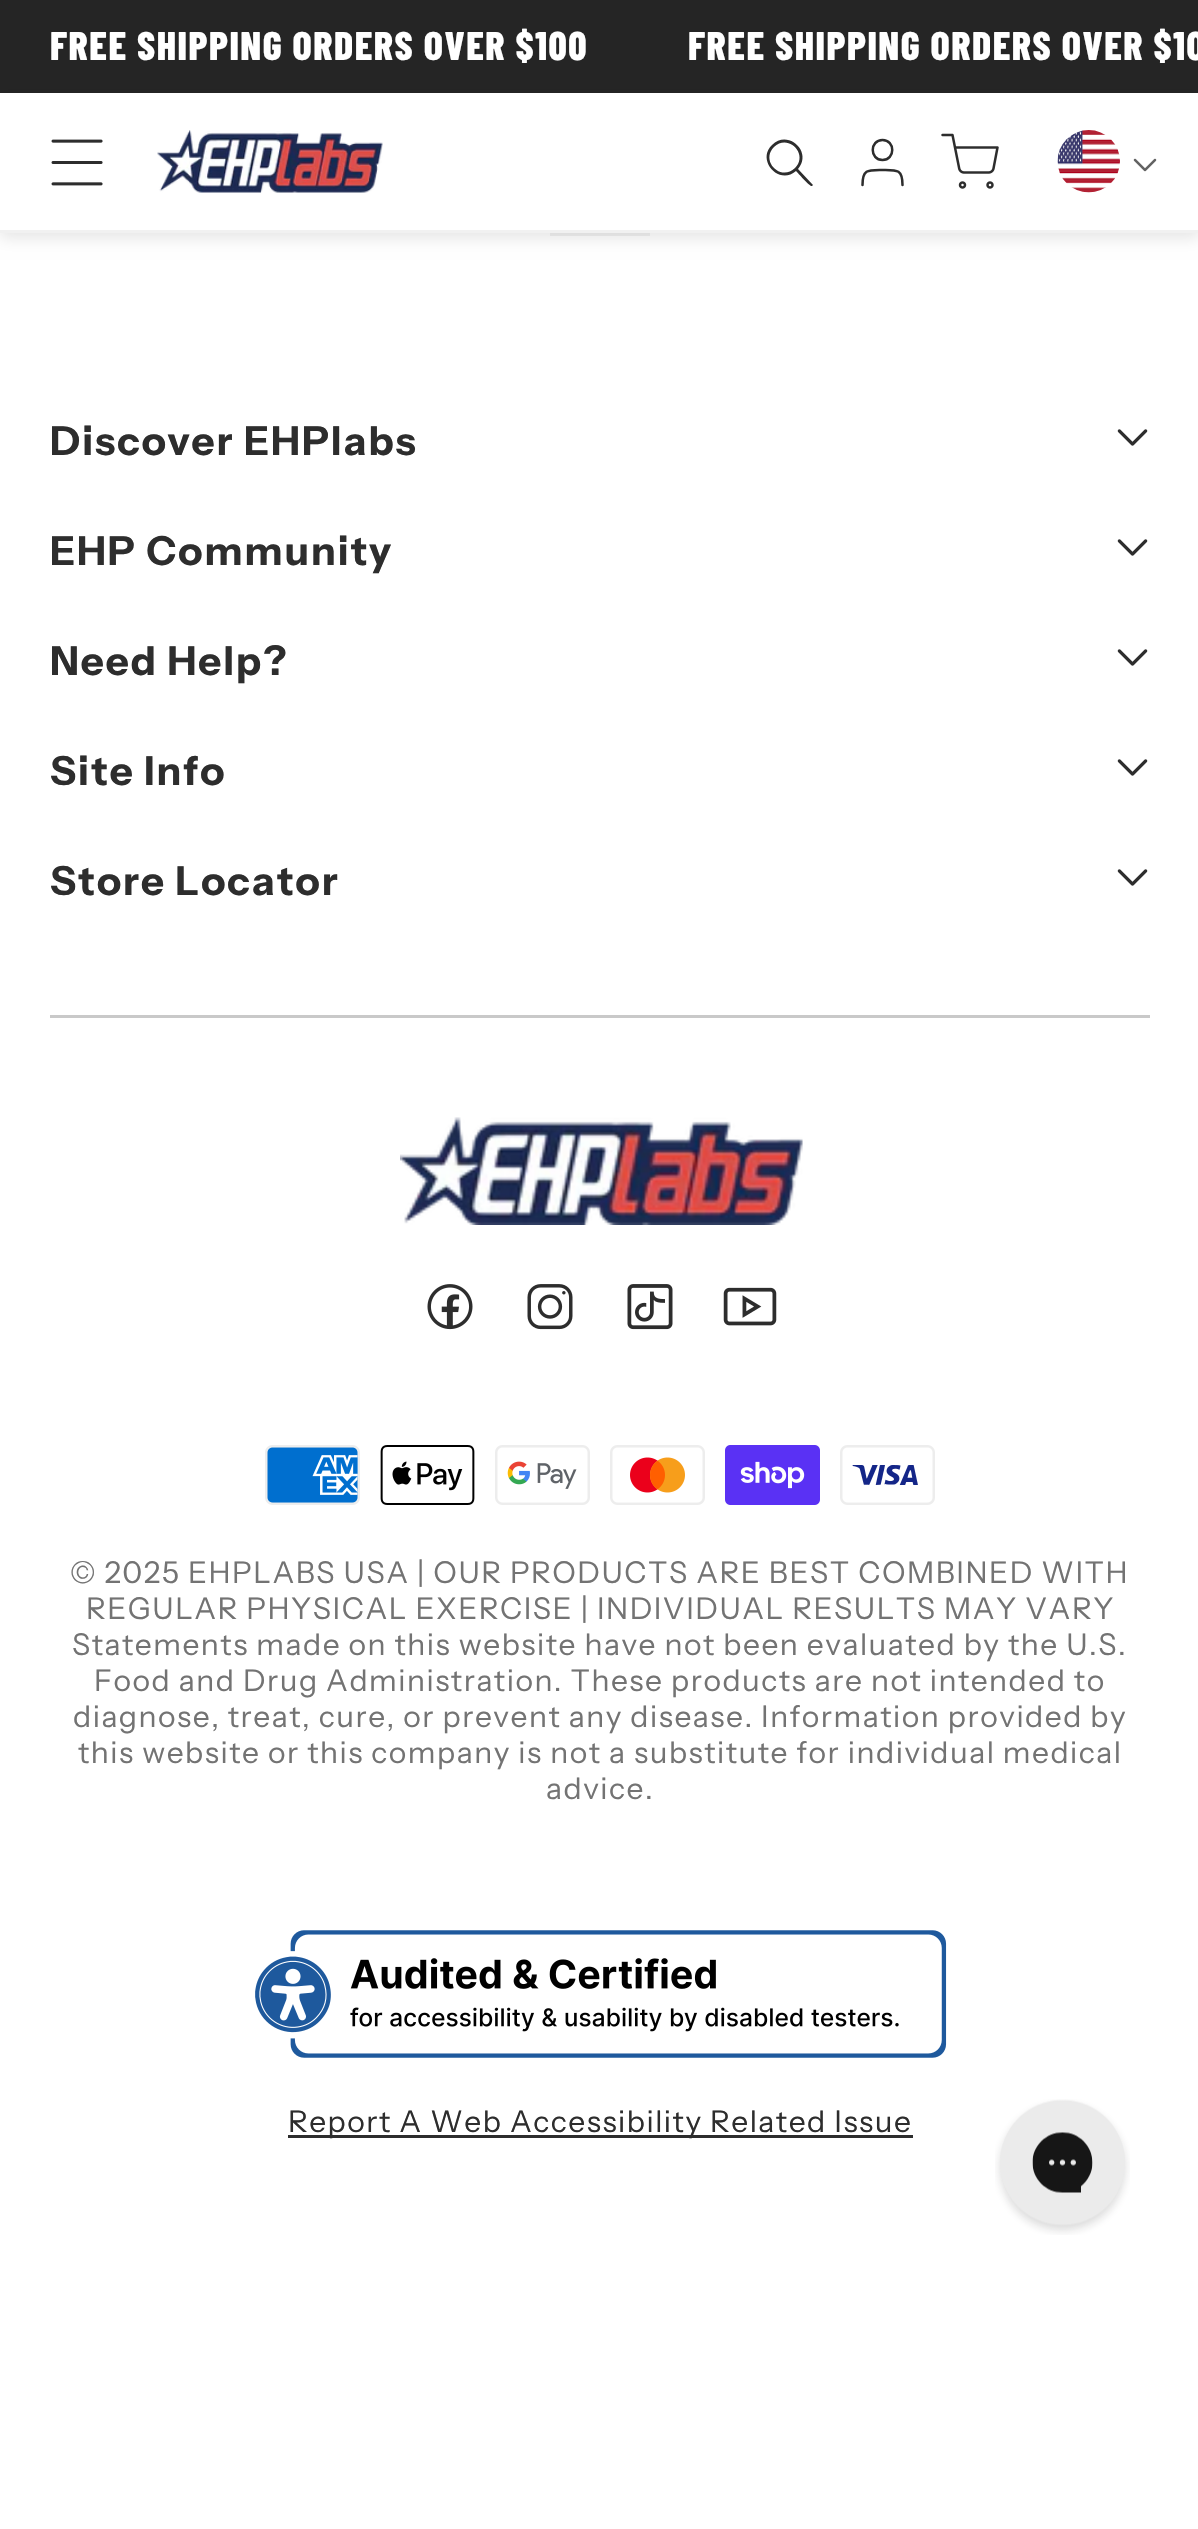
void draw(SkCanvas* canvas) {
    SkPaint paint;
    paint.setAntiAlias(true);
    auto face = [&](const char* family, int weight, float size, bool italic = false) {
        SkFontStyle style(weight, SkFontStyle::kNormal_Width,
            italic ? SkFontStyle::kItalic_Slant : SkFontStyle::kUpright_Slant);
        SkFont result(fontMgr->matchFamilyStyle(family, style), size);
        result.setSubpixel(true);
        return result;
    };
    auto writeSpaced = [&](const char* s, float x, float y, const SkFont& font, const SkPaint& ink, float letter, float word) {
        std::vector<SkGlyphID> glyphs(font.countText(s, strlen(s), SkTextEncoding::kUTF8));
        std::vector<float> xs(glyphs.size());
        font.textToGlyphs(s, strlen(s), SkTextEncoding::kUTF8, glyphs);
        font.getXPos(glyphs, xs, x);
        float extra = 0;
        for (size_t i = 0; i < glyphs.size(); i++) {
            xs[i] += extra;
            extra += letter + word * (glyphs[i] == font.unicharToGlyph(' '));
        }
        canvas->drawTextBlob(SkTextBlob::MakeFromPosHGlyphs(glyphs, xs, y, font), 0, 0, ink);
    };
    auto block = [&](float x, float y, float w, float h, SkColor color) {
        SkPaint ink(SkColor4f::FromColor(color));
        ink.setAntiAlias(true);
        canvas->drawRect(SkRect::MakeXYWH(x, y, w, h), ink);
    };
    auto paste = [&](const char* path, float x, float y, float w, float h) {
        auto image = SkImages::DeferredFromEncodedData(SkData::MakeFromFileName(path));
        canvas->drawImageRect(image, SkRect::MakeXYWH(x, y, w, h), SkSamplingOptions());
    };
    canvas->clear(SK_ColorWHITE);
    block(0, 0, 1198, 93, SkColorSetRGB(37, 37, 37));
    auto kFont1 = face("Barlow Condensed", 800, 40);
    paint.setColor(SK_ColorWHITE);
    writeSpaced("FREE SHIPPING ORDERS OVER $100", 50, 60, kFont1, paint, 1.5f, 0);
    writeSpaced("FREE SHIPPING ORDERS OVER $10", 688, 60, kFont1, paint, 1.5f, 0);
    block(550, 233, 100, 3, SkColorSetRGB(241, 241, 241));
    paint.setColor(SkColorSetARGB(26, 0, 0, 0));
    paint.setMaskFilter(SkMaskFilter::MakeBlur(kNormal_SkBlurStyle, 7.5f));
    canvas->drawRect(SkRect::MakeXYWH(0, 98, 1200, 140), paint);
    paint.setMaskFilter(nullptr);
    block(0, 93, 1198, 137, SK_ColorWHITE);
    block(0, 230, 1198, 3, SkColorSetRGB(241, 241, 241));
    paste("pic1.png", 51, 139, 52, 47);
    paste("pic2.png", 157, 130, 226, 63);
    paint.setColor(SkColorSetRGB(45, 45, 45));
    canvas->drawPath(SkPathBuilder(SkPathFillType::kEvenOdd).moveTo(795, 168).cubicTo(781, 182, 760, 161, 774, 147).cubicTo(788, 133, 809, 154, 795, 168).close().moveTo(796, 171).cubicTo(779, 186, 756, 160, 772, 145).cubicTo(788, 129, 813, 152, 798, 169).lineTo(813, 185).lineTo(812, 186).cubicTo(810, 187, 798, 173, 796, 171).close().detach(), paint);
    paint.setStyle(SkPaint::kStroke_Style);
    paint.setStrokeWidth(2.5f);
    paint.setStrokeCap(SkPaint::kRound_Cap);
    paint.setStrokeJoin(SkPaint::kRound_Join);
    canvas->drawPath(SkPathBuilder().moveTo(902.5f, 185).cubicTo(902.5f, 169, 897, 170, 882.5f, 170).cubicTo(868, 170, 862.5f, 169, 862.5f, 185).moveTo(882.5f, 160).cubicTo(895.5f, 160, 895.5f, 140, 882.5f, 140).cubicTo(869.5f, 140, 869.5f, 160, 882.5f, 160).close().detach(), paint);
    paste("pic3.png", 941, 133, 58, 56);
    paste("pic4.png", 1057, 130, 63, 63);
    paste("pic5.png", 1133, 158, 24, 14);
    auto kFont2 = face("Instrument Sans", 700, 40);
    paint.setStyle(SkPaint::kFill_Style);
    writeSpaced("Discover EHPlabs", 50, 455, kFont2, paint, 2, 0);
    paste("pic6.png", 1117, 429, 31, 17);
    writeSpaced("EHP Community", 50, 565, kFont2, paint, 2, 0);
    paste("pic6.png", 1117, 539, 31, 17);
    writeSpaced("Need Help?", 50, 675, kFont2, paint, 2, 0);
    paste("pic6.png", 1117, 649, 31, 17);
    writeSpaced("Site Info", 50, 785, kFont2, paint, 2, 0);
    paste("pic6.png", 1117, 759, 31, 17);
    writeSpaced("Store Locator", 50, 895, kFont2, paint, 2, 0);
    paste("pic6.png", 1117, 869, 31, 17);
    block(50, 1015, 1100, 3, SkColorSetRGB(201, 201, 201));
    paste("pic7.png", 400, 1117, 403, 108);
    paste("pic8.png", 427, 1284, 46, 46);
    paste("pic9.png", 527, 1284, 46, 46);
    paste("pic10.png", 627, 1284, 46, 46);
    paste("pic11.png", 723, 1287, 54, 39);
    paste("pic12.png", 265, 1445, 95, 60);
    paste("pic13.png", 380, 1445, 95, 60);
    paste("pic14.png", 495, 1445, 95, 60);
    paste("pic15.png", 610, 1445, 95, 60);
    paste("pic16.png", 725, 1445, 95, 60);
    paste("pic17.png", 840, 1445, 95, 60);
    auto kFont3 = face("Instrument Sans", 400, 30);
    paint.setColor(SkColorSetRGB(115, 115, 115));
    writeSpaced("© 2025 EHPLABS USA | OUR PRODUCTS ARE BEST COMBINED WITH", 70, 1583, kFont3, paint, 1.5f, 0);
    writeSpaced("REGULAR PHYSICAL EXERCISE | INDIVIDUAL RESULTS MAY VARY", 86, 1619, kFont3, paint, 1.5f, 0);
    writeSpaced("Statements made on this website have not been evaluated by the U.S.", 72, 1655, kFont3, paint, 1.5f, 0);
    writeSpaced("Food and Drug Administration. These products are not intended to", 94, 1691, kFont3, paint, 1.5f, 0);
    writeSpaced("diagnose, treat, cure, or prevent any disease. Information provided by", 73, 1727, kFont3, paint, 1.5f, 0);
    writeSpaced("this website or this company is not a substitute for individual medical", 78, 1763, kFont3, paint, 1.5f, 0);
    writeSpaced("advice.", 546, 1799, kFont3, paint, 1.5f, 0);
    paste("pic18.png", 255, 1930, 692, 128);
    block(288, 2135, 625, 3, SkColorSetRGB(45, 45, 45));
    paint.setColor(SkColorSetRGB(45, 45, 45));
    writeSpaced("Report A Web Accessibility Related Issue", 288, 2132, kFont3, paint, 1.5f, 0);
    paste("pic19.png", 995, 2099, 135, 136);
}
